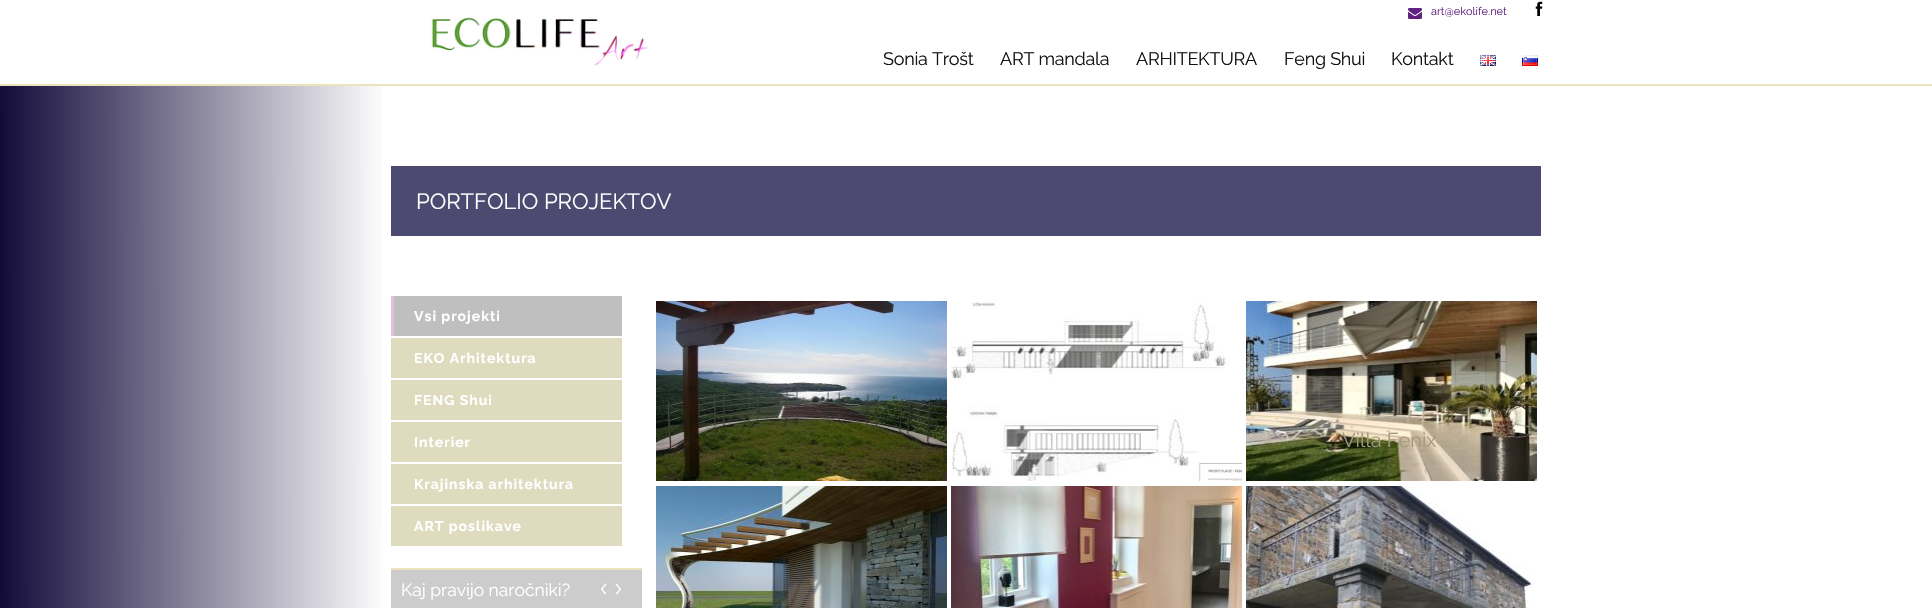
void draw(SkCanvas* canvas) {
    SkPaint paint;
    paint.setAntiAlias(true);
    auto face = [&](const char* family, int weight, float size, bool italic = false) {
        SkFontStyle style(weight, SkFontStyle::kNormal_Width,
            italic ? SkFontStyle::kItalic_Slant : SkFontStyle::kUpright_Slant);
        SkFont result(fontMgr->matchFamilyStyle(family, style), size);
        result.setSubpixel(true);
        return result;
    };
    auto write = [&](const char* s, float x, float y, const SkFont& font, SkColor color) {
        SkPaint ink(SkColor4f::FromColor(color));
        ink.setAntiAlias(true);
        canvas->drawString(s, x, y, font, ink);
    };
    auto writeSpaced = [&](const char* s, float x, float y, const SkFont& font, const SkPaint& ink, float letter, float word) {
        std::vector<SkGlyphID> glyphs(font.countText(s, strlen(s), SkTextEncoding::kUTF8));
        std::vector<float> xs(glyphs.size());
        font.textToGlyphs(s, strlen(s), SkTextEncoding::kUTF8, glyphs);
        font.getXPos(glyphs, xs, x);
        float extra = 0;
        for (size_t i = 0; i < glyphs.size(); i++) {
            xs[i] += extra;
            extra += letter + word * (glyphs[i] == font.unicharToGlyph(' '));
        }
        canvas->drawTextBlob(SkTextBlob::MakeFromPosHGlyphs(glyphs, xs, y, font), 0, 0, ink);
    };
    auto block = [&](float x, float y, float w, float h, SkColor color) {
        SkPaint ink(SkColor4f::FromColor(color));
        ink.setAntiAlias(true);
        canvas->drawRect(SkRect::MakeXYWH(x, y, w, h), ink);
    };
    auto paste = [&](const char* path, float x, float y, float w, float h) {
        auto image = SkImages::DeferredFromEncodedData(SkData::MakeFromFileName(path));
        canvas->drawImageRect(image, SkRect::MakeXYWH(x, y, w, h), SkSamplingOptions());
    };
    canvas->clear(SK_ColorWHITE);
    {
        const SkColor colors[] = {SkColorSetRGB(18, 11, 58), SK_ColorWHITE};
        const float stops[] = {0, 0.2f};
        const SkPoint ends[] = {{0, 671}, {1932, 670}};
        paint.setShader(SkGradientShader::MakeLinear(ends, colors, stops, 2, SkTileMode::kClamp));
        paint.setAlpha(255);
    }
    canvas->drawRect(SkRect::MakeXYWH(0, 86, 382, 522), paint);
    block(0, 84, 1932, 2, SkColorSetRGB(236, 226, 187));
    paste("pic1.png", 431, 17, 217, 49);
    paste("pic2.png", 1408, 8, 14, 11);
    auto kFont1 = face("Raleway", 400, 11);
    write("art@ekolife.net", 1431, 15, kFont1, SkColorSetRGB(96, 34, 128));
    paste("pic3.png", 1535, 1, 8, 15);
    auto kFont2 = face("Raleway", 400, 18);
    paint.setShader(nullptr);
    paint.setColor(SkColorSetRGB(18, 18, 18));
    writeSpaced("Sonia Trošt", 883, 65, kFont2, paint, -0.25f, 0);
    writeSpaced("ART mandala", 1000, 65, kFont2, paint, -0.25f, 0);
    writeSpaced("ARHITEKTURA", 1136, 65, kFont2, paint, -0.25f, 0);
    writeSpaced("Feng Shui", 1284, 65, kFont2, paint, -0.25f, 0);
    writeSpaced("Kontakt", 1391, 65, kFont2, paint, -0.25f, 0);
    paste("pic4.png", 1480, 55, 16, 11);
    paste("pic5.png", 1522, 55, 16, 11);
    block(391, 166, 1150, 70, SkColorSetRGB(77, 74, 113));
    auto kFont3 = face("Raleway", 400, 22);
    write("PORTFOLIO PROJEKTOV", 416, 209, kFont3, SK_ColorWHITE);
    block(394, 296, 228, 40, SkColorSetRGB(191, 191, 191));
    block(391, 296, 3, 40, SkColorSetRGB(236, 187, 228));
    auto kFont4 = face("Raleway", 700, 14);
    paint.setColor(SK_ColorWHITE);
    writeSpaced("Vsi projekti", 414, 321, kFont4, paint, 1, 0);
    block(391, 338, 231, 40, SkColorSetRGB(222, 219, 190));
    writeSpaced("EKO Arhitektura", 414, 363, kFont4, paint, 1, 0);
    block(391, 380, 231, 40, SkColorSetRGB(222, 219, 190));
    writeSpaced("FENG Shui", 414, 405, kFont4, paint, 1, 0);
    block(391, 422, 231, 40, SkColorSetRGB(222, 219, 190));
    writeSpaced("Interier", 414, 447, kFont4, paint, 1, 0);
    block(391, 464, 231, 40, SkColorSetRGB(222, 219, 190));
    writeSpaced("Krajinska arhitektura", 414, 489, kFont4, paint, 1, 0);
    block(391, 506, 231, 40, SkColorSetRGB(222, 219, 190));
    writeSpaced("ART poslikave", 414, 531, kFont4, paint, 1, 0);
    block(391, 570, 251, 38, SkColorSetRGB(204, 204, 204));
    block(391, 568, 251, 2, SkColorSetRGB(236, 226, 187));
    auto kFont5 = face("Raleway", 400, 17.5f);
    write("Kaj pravijo naročniki?", 401, 596, kFont5, SK_ColorWHITE);
    paste("pic6.png", 601, 583, 6, 12);
    paste("pic7.png", 615, 583, 6, 12);
    paste("pic8.png", 656, 301, 291, 180);
    paste("pic9.png", 951, 301, 291, 180);
    paste("pic10.png", 1246, 301, 291, 180);
    auto kFont6 = face("Raleway", 400, 20);
    write("Villa Fenix", 1342, 447, kFont6, SkColorSetRGB(162, 154, 123));
    paste("pic11.png", 656, 486, 291, 122);
    paste("pic12.png", 951, 486, 291, 122);
    paste("pic13.png", 1246, 486, 289, 122);
}
